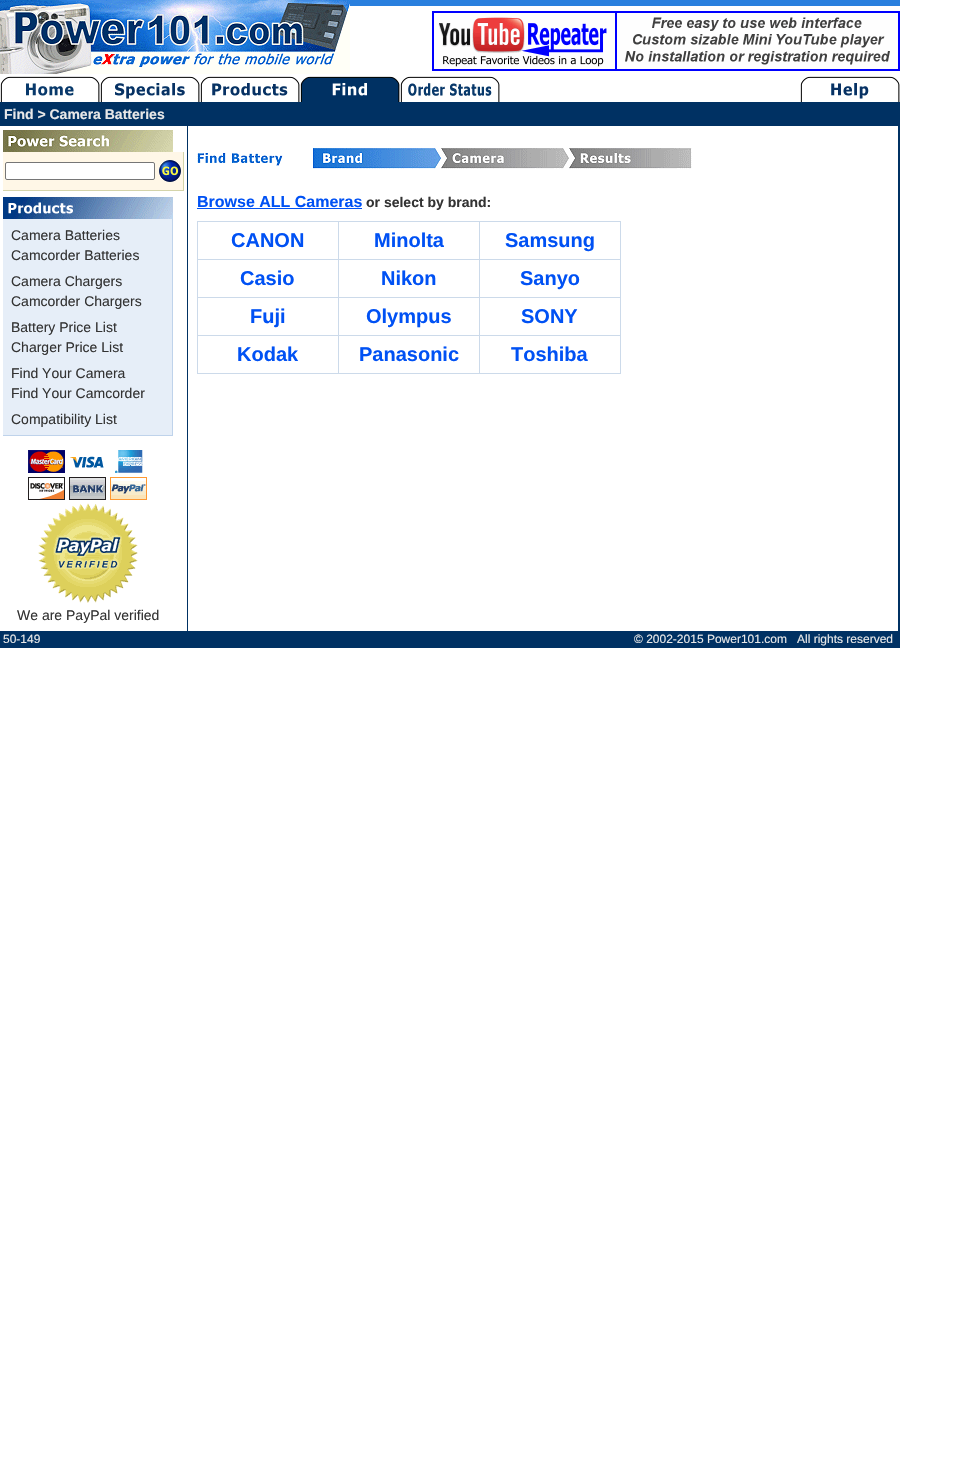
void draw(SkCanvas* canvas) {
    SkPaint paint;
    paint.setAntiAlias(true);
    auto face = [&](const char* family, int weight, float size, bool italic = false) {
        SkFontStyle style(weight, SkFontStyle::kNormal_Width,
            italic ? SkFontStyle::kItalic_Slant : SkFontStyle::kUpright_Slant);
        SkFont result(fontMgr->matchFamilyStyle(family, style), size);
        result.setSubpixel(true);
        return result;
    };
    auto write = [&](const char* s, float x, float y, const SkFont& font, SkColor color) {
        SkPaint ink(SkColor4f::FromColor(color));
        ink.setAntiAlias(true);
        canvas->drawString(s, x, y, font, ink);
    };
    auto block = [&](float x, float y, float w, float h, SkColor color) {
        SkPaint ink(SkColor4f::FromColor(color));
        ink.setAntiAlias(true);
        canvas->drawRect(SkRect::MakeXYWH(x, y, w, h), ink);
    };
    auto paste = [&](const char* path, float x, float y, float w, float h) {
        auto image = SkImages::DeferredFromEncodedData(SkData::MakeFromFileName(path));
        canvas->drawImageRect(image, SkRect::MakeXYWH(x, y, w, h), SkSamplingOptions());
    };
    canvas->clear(SK_ColorWHITE);
    paste("pic1.png", 0, 0, 350, 74);
    block(350, 0, 550, 6, SkColorSetRGB(41, 127, 222));
    paste("pic2.png", 432, 11, 468, 60);
    paste("pic3.png", 0, 76, 100, 26);
    paste("pic4.png", 100, 76, 100, 26);
    paste("pic5.png", 200, 76, 100, 26);
    paste("pic6.png", 300, 76, 100, 26);
    paste("pic7.png", 400, 76, 100, 26);
    paste("pic8.png", 800, 76, 100, 26);
    block(0, 102, 900, 24, SkColorSetRGB(0, 49, 99));
    auto kFont1 = face("Liberation Sans", 700, 14);
    write("Find > Camera Batteries", 4, 119, kFont1, SkColorSetRGB(232, 232, 232));
    paste("pic9.png", 3, 130, 170, 22);
    block(3, 152, 180, 38, SkColorSetRGB(255, 247, 231));
    paint.setColor(SK_ColorWHITE);
    canvas->drawRoundRect(SkRect::MakeXYWH(5.5f, 162.5f, 149, 17), 1.5f, 1.5f, paint);
    paint.setStyle(SkPaint::kStroke_Style);
    paint.setStrokeWidth(1);
    paint.setColor(SkColorSetRGB(118, 118, 118));
    canvas->drawRoundRect(SkRect::MakeXYWH(5.5f, 162.5f, 149, 17), 1.5f, 1.5f, paint);
    paste("pic10.png", 159, 160, 22, 22);
    block(183, 152, 1, 38, SkColorSetRGB(212, 212, 170));
    block(3, 190, 181, 1, SkColorSetRGB(212, 212, 170));
    paste("pic11.png", 3, 197, 170, 22);
    block(3, 219, 169, 216, SkColorSetRGB(230, 238, 248));
    auto kFont2 = face("Liberation Sans", 400, 14);
    write("Camera Batteries", 11, 240, kFont2, SkColorSetRGB(51, 51, 51));
    write("Camcorder Batteries", 11, 260, kFont2, SkColorSetRGB(51, 51, 51));
    write("Camera Chargers", 11, 286, kFont2, SkColorSetRGB(51, 51, 51));
    write("Camcorder Chargers", 11, 306, kFont2, SkColorSetRGB(51, 51, 51));
    write("Battery Price List", 11, 332, kFont2, SkColorSetRGB(51, 51, 51));
    write("Charger Price List", 11, 352, kFont2, SkColorSetRGB(51, 51, 51));
    write("Find Your Camera", 11, 378, kFont2, SkColorSetRGB(51, 51, 51));
    write("Find Your Camcorder", 11, 398, kFont2, SkColorSetRGB(51, 51, 51));
    write("Compatibility List", 11, 424, kFont2, SkColorSetRGB(51, 51, 51));
    block(172, 219, 1, 216, SkColorSetRGB(191, 211, 235));
    block(3, 435, 170, 1, SkColorSetRGB(191, 211, 235));
    paste("pic12.png", 28, 450, 119, 153);
    write("We are PayPal verified", 17, 620, kFont2, SkColorSetRGB(51, 51, 51));
    block(187, 126, 1, 505, SkColorSetRGB(0, 49, 99));
    paste("pic13.png", 197, 148, 495, 21);
    auto kFont3 = face("Liberation Sans", 700, 16);
    write("Browse ALL Cameras", 197, 207, kFont3, SkColorSetRGB(0, 81, 244));
    block(197, 208, 165, 1, SkColorSetRGB(0, 81, 244));
    write("or select by brand:", 366, 207, kFont1, SkColorSetRGB(51, 51, 51));
    block(197, 221, 424, 153, SkColorSetRGB(204, 218, 234));
    block(198, 222, 140, 37, SK_ColorWHITE);
    auto kFont4 = face("Liberation Sans", 700, 20);
    write("CANON", 231, 247, kFont4, SkColorSetRGB(0, 81, 244));
    block(339, 222, 140, 37, SK_ColorWHITE);
    write("Minolta", 374, 247, kFont4, SkColorSetRGB(0, 81, 244));
    block(480, 222, 140, 37, SK_ColorWHITE);
    write("Samsung", 505, 247, kFont4, SkColorSetRGB(0, 81, 244));
    block(198, 260, 140, 37, SK_ColorWHITE);
    write("Casio", 240, 285, kFont4, SkColorSetRGB(0, 81, 244));
    block(339, 260, 140, 37, SK_ColorWHITE);
    write("Nikon", 381, 285, kFont4, SkColorSetRGB(0, 81, 244));
    block(480, 260, 140, 37, SK_ColorWHITE);
    write("Sanyo", 520, 285, kFont4, SkColorSetRGB(0, 81, 244));
    block(198, 298, 140, 37, SK_ColorWHITE);
    write("Fuji", 250, 323, kFont4, SkColorSetRGB(0, 81, 244));
    block(339, 298, 140, 37, SK_ColorWHITE);
    write("Olympus", 366, 323, kFont4, SkColorSetRGB(0, 81, 244));
    block(480, 298, 140, 37, SK_ColorWHITE);
    write("SONY", 521, 323, kFont4, SkColorSetRGB(0, 81, 244));
    block(198, 336, 140, 37, SK_ColorWHITE);
    write("Kodak", 237, 361, kFont4, SkColorSetRGB(0, 81, 244));
    block(339, 336, 140, 37, SK_ColorWHITE);
    write("Panasonic", 359, 361, kFont4, SkColorSetRGB(0, 81, 244));
    block(480, 336, 140, 37, SK_ColorWHITE);
    write("Toshiba", 511, 361, kFont4, SkColorSetRGB(0, 81, 244));
    block(898, 126, 2, 505, SkColorSetRGB(0, 49, 99));
    block(0, 631, 900, 17, SkColorSetRGB(0, 49, 99));
    auto kFont5 = face("Liberation Sans", 400, 12);
    write("50-149", 3, 643, kFont5, SkColorSetRGB(232, 232, 232));
    write("© 2002-2015 Power101.com", 634, 643, kFont5, SkColorSetRGB(232, 232, 232));
    write("All rights reserved", 797, 643, kFont5, SkColorSetRGB(232, 232, 232));
}
